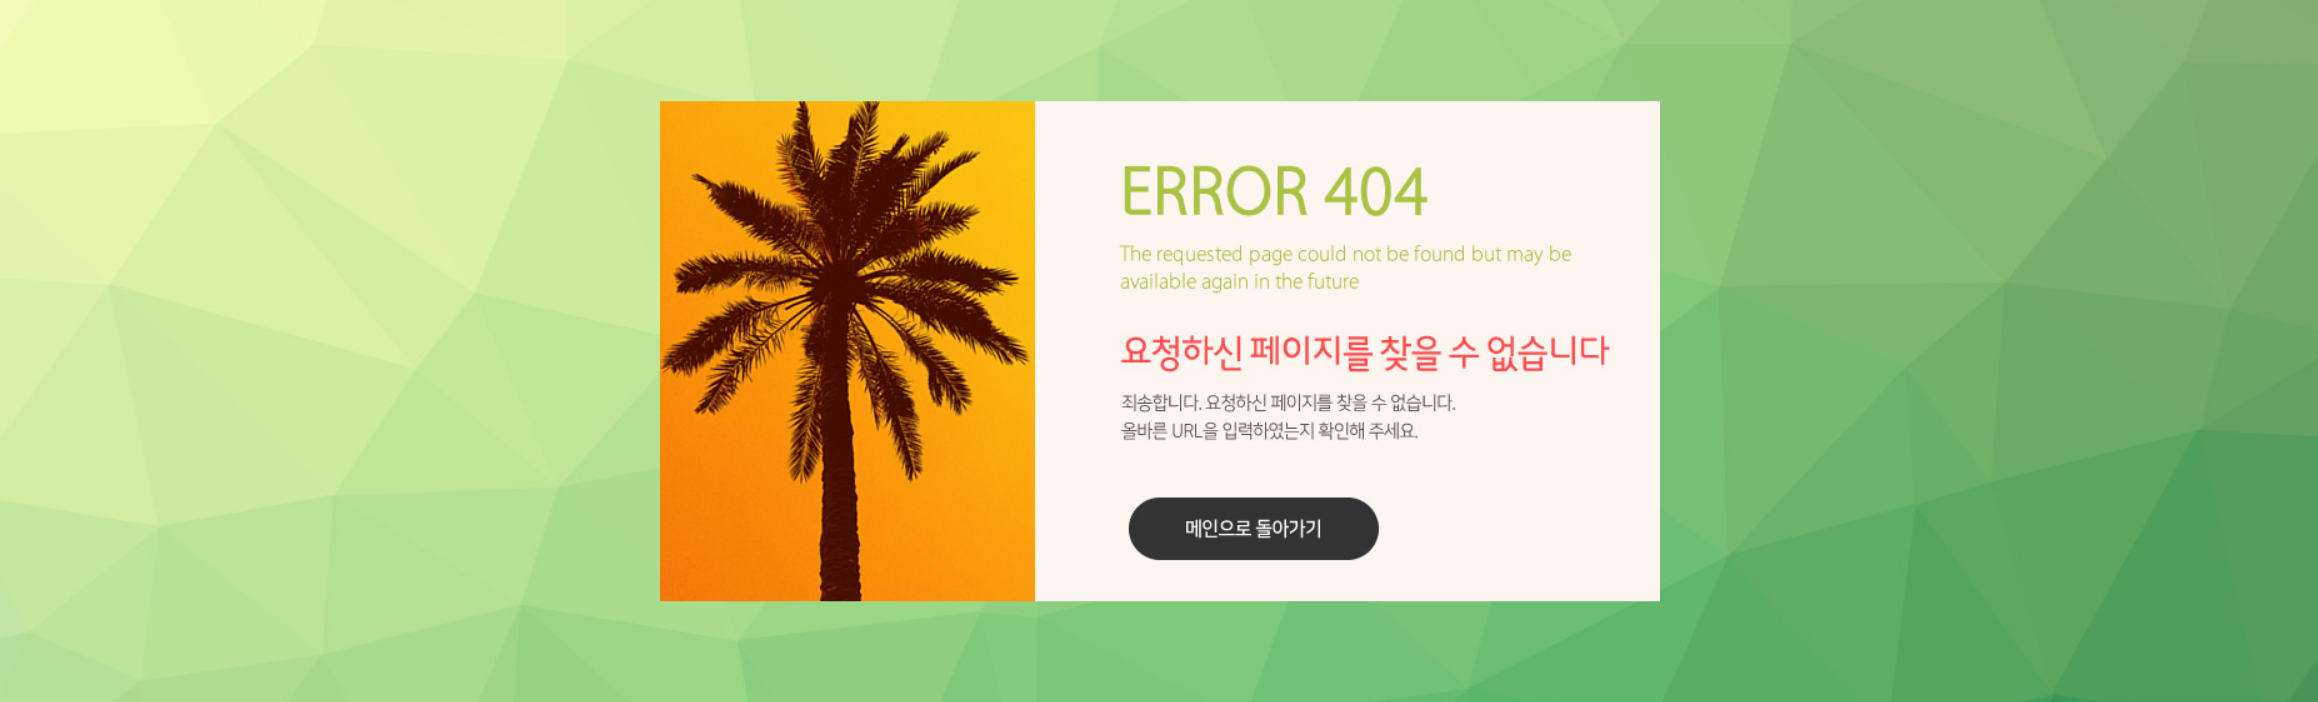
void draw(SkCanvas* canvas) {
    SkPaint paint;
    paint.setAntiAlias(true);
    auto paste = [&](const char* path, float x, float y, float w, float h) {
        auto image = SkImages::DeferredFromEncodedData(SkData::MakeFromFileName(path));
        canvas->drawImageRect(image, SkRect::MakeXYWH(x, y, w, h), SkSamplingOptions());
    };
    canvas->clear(SK_ColorWHITE);
    paste("pic1.png", 0, 0, 2318, 702);
    paste("pic2.png", 660, 101, 1000, 501);
}
